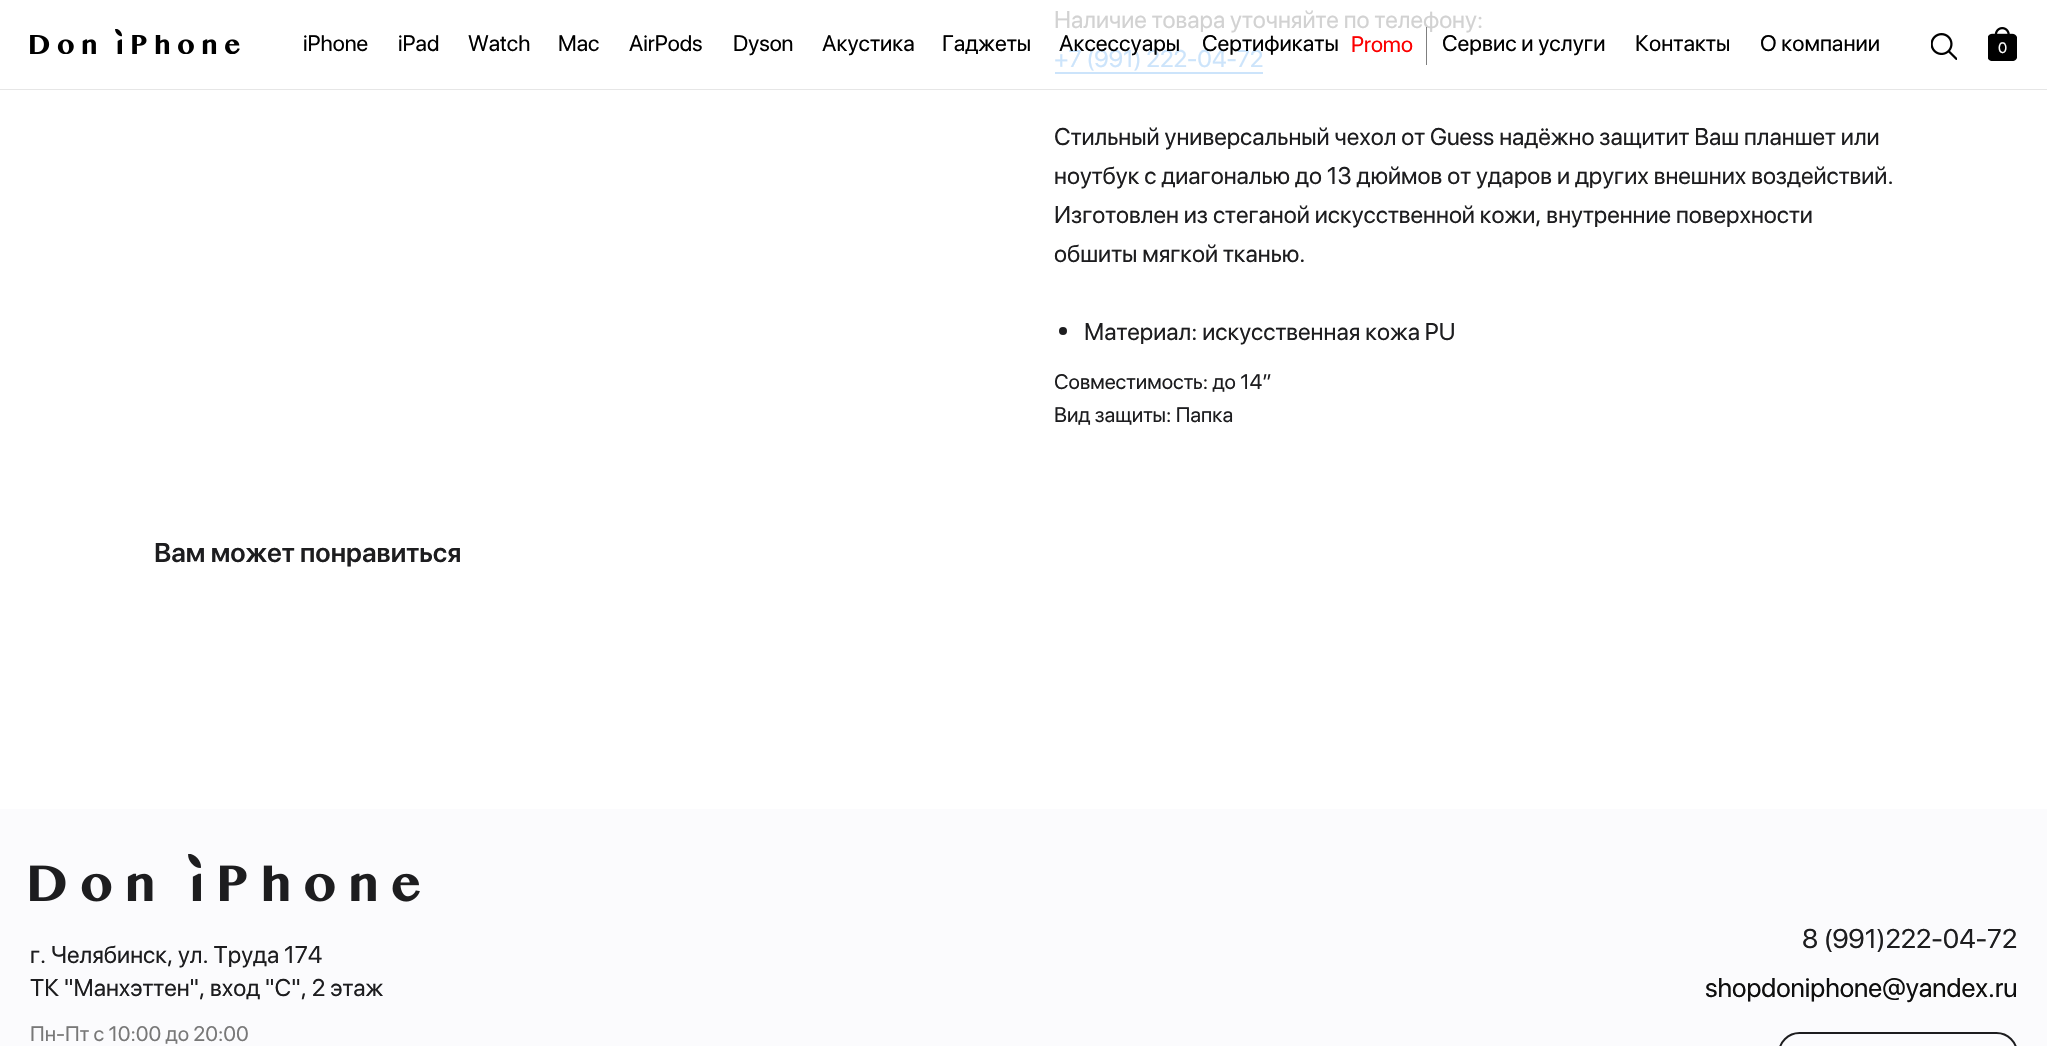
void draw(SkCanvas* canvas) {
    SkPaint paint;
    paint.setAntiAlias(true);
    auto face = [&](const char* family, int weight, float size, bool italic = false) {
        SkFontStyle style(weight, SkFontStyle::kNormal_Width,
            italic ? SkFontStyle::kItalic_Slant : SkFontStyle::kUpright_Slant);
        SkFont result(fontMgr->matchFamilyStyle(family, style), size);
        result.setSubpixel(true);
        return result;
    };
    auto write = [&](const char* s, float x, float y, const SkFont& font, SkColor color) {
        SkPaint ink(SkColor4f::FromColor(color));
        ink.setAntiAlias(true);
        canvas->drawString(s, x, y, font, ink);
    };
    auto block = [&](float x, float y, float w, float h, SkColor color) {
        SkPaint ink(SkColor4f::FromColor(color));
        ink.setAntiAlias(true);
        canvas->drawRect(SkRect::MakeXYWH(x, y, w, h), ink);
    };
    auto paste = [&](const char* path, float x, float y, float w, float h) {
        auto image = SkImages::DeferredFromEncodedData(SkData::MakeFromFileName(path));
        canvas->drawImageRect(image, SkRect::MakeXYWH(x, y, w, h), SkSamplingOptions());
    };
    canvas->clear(SK_ColorWHITE);
    auto kFont1 = face("SF Pro Display", 400, 24);
    write("Наличие товара уточняйте по телефону:", 1054, 28, kFont1, SkColorSetRGB(210, 210, 210));
    write("+7 (991) 222-04-72", 1054, 67, kFont1, SkColorSetRGB(204, 228, 251));
    block(1055, 72, 208, 2, SkColorSetRGB(204, 228, 251));
    write("Стильный универсальный чехол от Guess надёжно защитит Ваш планшет или", 1054, 145, kFont1, SkColorSetRGB(29, 29, 31));
    write("ноутбук с диагональю до 13 дюймов от ударов и других внешних воздействий.", 1054, 184, kFont1, SkColorSetRGB(29, 29, 31));
    write("Изготовлен из стеганой искусственной кожи, внутренние поверхности", 1054, 223, kFont1, SkColorSetRGB(29, 29, 31));
    write("обшиты мягкой тканью.", 1054, 262, kFont1, SkColorSetRGB(29, 29, 31));
    paint.setColor(SkColorSetRGB(29, 29, 31));
    canvas->drawCircle(1063, 331, 4, paint);
    write("Материал: искусственная кожа PU", 1084, 340, kFont1, SkColorSetRGB(29, 29, 31));
    auto kFont2 = face("SF Pro Display", 400, 21);
    write("Совместимость: до 14”", 1054, 389, kFont2, SkColorSetRGB(29, 29, 31));
    write("Вид защиты: Папка", 1054, 422, kFont2, SkColorSetRGB(29, 29, 31));
    auto kFont3 = face("SF Pro Display", 600, 27);
    write("Вам может понравиться", 154, 562, kFont3, SkColorSetRGB(29, 29, 31));
    paste("pic1.png", 30, 29, 210, 25);
    auto kFont4 = face("SF Pro Display", 400, 22.5f);
    write("iPhone", 303, 51, kFont4, SK_ColorBLACK);
    write("iPad", 398, 51, kFont4, SK_ColorBLACK);
    write("Watch", 468, 51, kFont4, SK_ColorBLACK);
    write("Mac", 558, 51, kFont4, SK_ColorBLACK);
    write("AirPods", 629, 51, kFont4, SK_ColorBLACK);
    write("Dyson", 733, 51, kFont4, SK_ColorBLACK);
    write("Акустика", 822, 51, kFont4, SK_ColorBLACK);
    write("Гаджеты", 942, 51, kFont4, SK_ColorBLACK);
    write("Аксессуары", 1059, 51, kFont4, SK_ColorBLACK);
    write("Сертификаты", 1202, 51, kFont4, SK_ColorBLACK);
    write("Promo", 1351, 52, kFont4, SkColorSetRGB(252, 0, 0));
    block(1426, 27, 1, 38, SkColorSetARGB(128, 0, 0, 0));
    write("Сервис и услуги", 1442, 51, kFont4, SK_ColorBLACK);
    write("Контакты", 1635, 51, kFont4, SK_ColorBLACK);
    write("О компании", 1760, 51, kFont4, SK_ColorBLACK);
    paste("pic2.png", 1931, 33, 26, 27);
    paste("pic3.png", 1988, 27, 29, 34);
    auto kFont5 = face("SF Pro Display", 400, 15);
    write("0", 1998, 53, kFont5, SK_ColorWHITE);
    block(0, 89, 2047, 1, SkColorSetRGB(230, 230, 230));
    block(0, 809, 2047, 237, SkColorSetRGB(251, 251, 253));
    paste("pic4.png", 30, 854, 390, 48);
    auto kFont6 = face("SF Pro Display", 400, 27);
    write("8 (991)222-04-72", 1802, 948, kFont6, SkColorSetRGB(29, 29, 31));
    write("г. Челябинск, ул. Труда 174", 30, 963, kFont1, SkColorSetRGB(29, 29, 31));
    write("ТК \"Манхэттен\", вход \"С\", 2 этаж", 30, 996, kFont1, SkColorSetRGB(29, 29, 31));
    write("shopdoniphone@yandex.ru", 1705, 997, kFont6, SkColorSetRGB(15, 15, 15));
    write("Пн-Пт с 10:00 до 20:00", 30, 1041, kFont2, SkColorSetRGB(120, 120, 120));
    paint.setStyle(SkPaint::kStroke_Style);
    paint.setStrokeWidth(2);
    canvas->drawRoundRect(SkRect::MakeXYWH(1779, 1033, 238, 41), 25.5f, 25.5f, paint);
}
